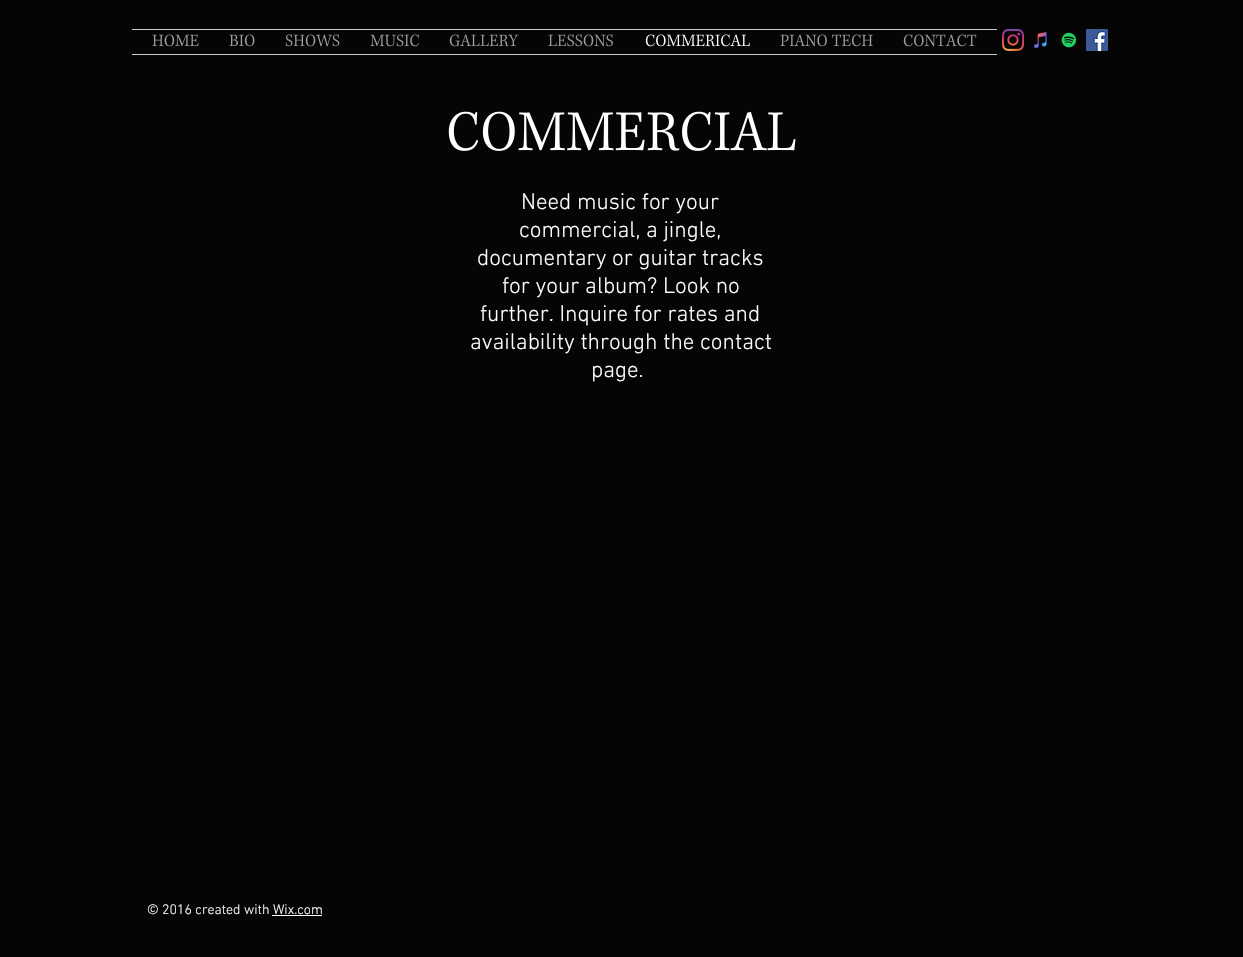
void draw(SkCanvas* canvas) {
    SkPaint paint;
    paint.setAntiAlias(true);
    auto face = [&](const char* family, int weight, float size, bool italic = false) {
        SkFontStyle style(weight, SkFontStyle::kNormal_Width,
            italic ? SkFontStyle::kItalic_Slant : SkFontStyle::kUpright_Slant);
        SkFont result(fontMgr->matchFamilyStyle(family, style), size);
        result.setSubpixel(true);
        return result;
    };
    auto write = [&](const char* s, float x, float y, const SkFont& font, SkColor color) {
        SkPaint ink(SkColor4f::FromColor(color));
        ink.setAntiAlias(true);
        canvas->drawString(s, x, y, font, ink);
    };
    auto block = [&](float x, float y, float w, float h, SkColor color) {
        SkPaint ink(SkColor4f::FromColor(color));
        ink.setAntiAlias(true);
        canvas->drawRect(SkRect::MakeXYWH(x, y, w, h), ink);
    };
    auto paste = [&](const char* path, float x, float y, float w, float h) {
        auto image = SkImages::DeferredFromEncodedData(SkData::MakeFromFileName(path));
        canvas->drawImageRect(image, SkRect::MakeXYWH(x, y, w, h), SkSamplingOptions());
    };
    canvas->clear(SkColorSetRGB(5, 5, 5));
    block(132, 29, 865, 1, SkColorSetRGB(202, 202, 202));
    block(132, 54, 865, 1, SkColorSetRGB(202, 202, 202));
    paste("pic1.png", 152, 34, 47, 13);
    paste("pic2.png", 229, 34, 26, 13);
    paste("pic3.png", 285, 34, 55, 13);
    paste("pic4.png", 370, 34, 49, 13);
    paste("pic5.png", 449, 34, 70, 13);
    paste("pic6.png", 548, 34, 65, 13);
    paste("pic7.png", 645, 34, 105, 13);
    paste("pic8.png", 780, 34, 93, 13);
    paste("pic9.png", 903, 34, 74, 13);
    paste("pic10.png", 1002, 29, 22, 22);
    paste("pic11.png", 1034, 32, 13, 16);
    paste("pic12.png", 1061, 32, 16, 16);
    paste("pic13.png", 1086, 29, 22, 22);
    paste("pic14.png", 448, 111, 348, 40);
    auto kFont1 = face("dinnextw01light", 300, 23);
    write("Need music for your", 521, 209, kFont1, SK_ColorWHITE);
    write("commercial, a jingle,", 519, 237, kFont1, SK_ColorWHITE);
    write("documentary or guitar tracks", 477, 265, kFont1, SK_ColorWHITE);
    write("for your album? Look no", 502, 293, kFont1, SK_ColorWHITE);
    write("further. Inquire for rates and", 480, 321, kFont1, SK_ColorWHITE);
    write("availability through the contact", 470, 349, kFont1, SK_ColorWHITE);
    write("page.", 591, 377, kFont1, SK_ColorWHITE);
    auto kFont2 = face("dinnextw01light", 300, 14);
    write("© 2016 created with Wix.com", 147, 914, kFont2, SK_ColorWHITE);
    block(272, 915, 50, 1, SK_ColorWHITE);
}
